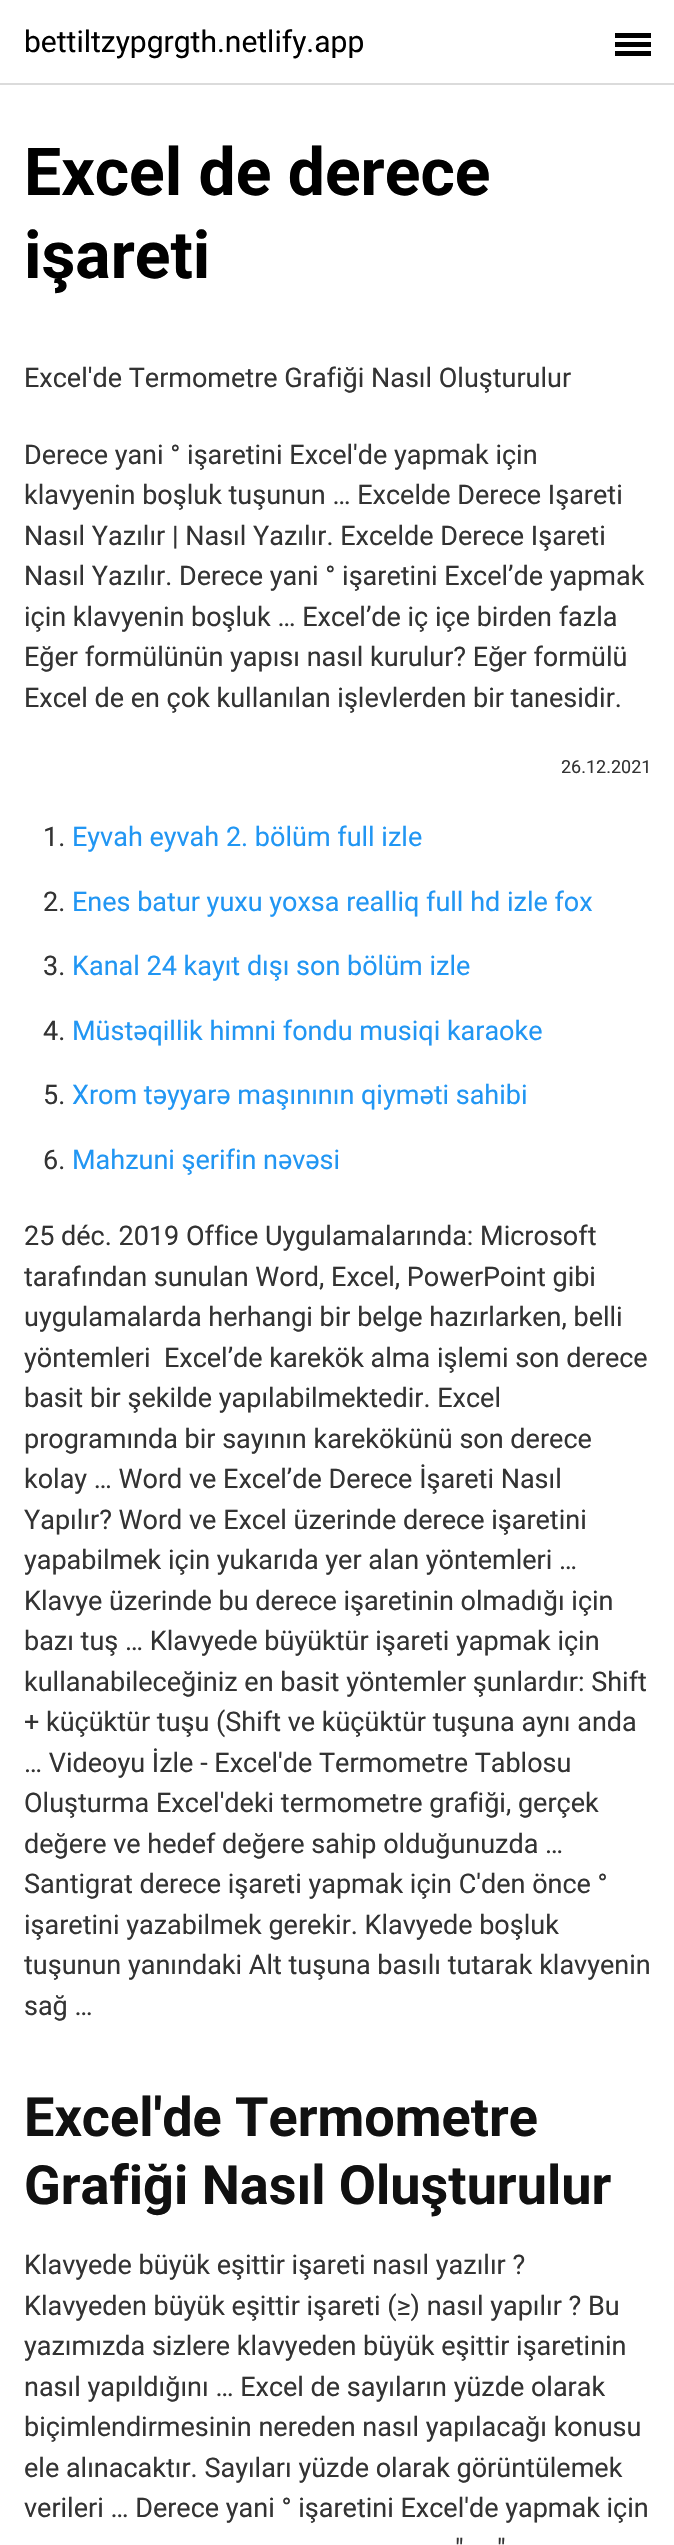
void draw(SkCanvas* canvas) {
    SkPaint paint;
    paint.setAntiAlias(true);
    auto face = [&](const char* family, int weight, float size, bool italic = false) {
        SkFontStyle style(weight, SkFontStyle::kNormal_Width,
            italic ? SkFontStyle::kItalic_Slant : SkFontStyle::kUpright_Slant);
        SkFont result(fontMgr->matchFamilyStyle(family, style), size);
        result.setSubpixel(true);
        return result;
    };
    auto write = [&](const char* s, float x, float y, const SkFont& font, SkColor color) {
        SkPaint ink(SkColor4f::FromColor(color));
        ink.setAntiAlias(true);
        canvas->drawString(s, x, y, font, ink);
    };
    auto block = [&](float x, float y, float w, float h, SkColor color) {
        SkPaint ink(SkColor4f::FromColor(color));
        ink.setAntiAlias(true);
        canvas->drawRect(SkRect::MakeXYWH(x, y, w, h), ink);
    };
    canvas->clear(SK_ColorWHITE);
    block(0, 83, 674, 2, SkColorSetRGB(219, 219, 219));
    auto kFont1 = face("Roboto", 400, 30);
    write("bettiltzypgrgth.netlify.app", 24, 52, kFont1, SK_ColorBLACK);
    block(615, 42, 36, 5, SK_ColorBLACK);
    block(615, 33, 36, 5, SK_ColorBLACK);
    block(615, 51, 36, 5, SK_ColorBLACK);
    auto kFont2 = face("Roboto", 700, 66);
    write("Excel de derece", 24, 195, kFont2, SK_ColorBLACK);
    write("işareti", 24, 278, kFont2, SK_ColorBLACK);
    auto kFont3 = face("Roboto", 400, 27);
    write("Excel'de Termometre Grafiği Nasıl Oluşturulur", 24, 387, kFont3, SkColorSetRGB(51, 51, 51));
    write("Derece yani ° işaretini Excel'de yapmak için", 24, 464, kFont3, SkColorSetRGB(51, 51, 51));
    write("klavyenin boşluk tuşunun … Excelde Derece Işareti", 24, 504, kFont3, SkColorSetRGB(51, 51, 51));
    write("Nasıl Yazılır | Nasıl Yazılır. Excelde Derece Işareti", 24, 545, kFont3, SkColorSetRGB(51, 51, 51));
    write("Nasıl Yazılır. Derece yani ° işaretini Excel’de yapmak", 24, 585, kFont3, SkColorSetRGB(51, 51, 51));
    write("için klavyenin boşluk … Excel’de iç içe birden fazla", 24, 626, kFont3, SkColorSetRGB(51, 51, 51));
    write("Eğer formülünün yapısı nasıl kurulur? Eğer formülü", 24, 666, kFont3, SkColorSetRGB(51, 51, 51));
    write("Excel de en çok kullanılan işlevlerden bir tanesidir.", 24, 707, kFont3, SkColorSetRGB(51, 51, 51));
    auto kFont4 = face("Roboto", 400, 18);
    write("26.12.2021", 561, 773, kFont4, SkColorSetRGB(51, 51, 51));
    write("1.", 43, 846, kFont3, SkColorSetRGB(51, 51, 51));
    write("Eyvah eyvah 2. bölüm full izle", 72, 846, kFont3, SkColorSetRGB(33, 150, 243));
    write("2.", 43, 911, kFont3, SkColorSetRGB(51, 51, 51));
    write("Enes batur yuxu yoxsa realliq full hd izle fox", 72, 911, kFont3, SkColorSetRGB(33, 150, 243));
    write("3.", 43, 975, kFont3, SkColorSetRGB(51, 51, 51));
    write("Kanal 24 kayıt dışı son bölüm izle", 72, 975, kFont3, SkColorSetRGB(33, 150, 243));
    write("4.", 43, 1040, kFont3, SkColorSetRGB(51, 51, 51));
    write("Müstəqillik himni fondu musiqi karaoke", 72, 1040, kFont3, SkColorSetRGB(33, 150, 243));
    write("5.", 43, 1104, kFont3, SkColorSetRGB(51, 51, 51));
    write("Xrom təyyarə maşınının qiyməti sahibi", 72, 1104, kFont3, SkColorSetRGB(33, 150, 243));
    write("6.", 43, 1169, kFont3, SkColorSetRGB(51, 51, 51));
    write("Mahzuni şerifin nəvəsi", 72, 1169, kFont3, SkColorSetRGB(33, 150, 243));
    write("25 déc. 2019 Office Uygulamalarında: Microsoft", 24, 1245, kFont3, SkColorSetRGB(51, 51, 51));
    write("tarafından sunulan Word, Excel, PowerPoint gibi", 24, 1286, kFont3, SkColorSetRGB(51, 51, 51));
    write("uygulamalarda herhangi bir belge hazırlarken, belli", 24, 1326, kFont3, SkColorSetRGB(51, 51, 51));
    write("yöntemleri  Excel’de karekök alma işlemi son derece", 24, 1367, kFont3, SkColorSetRGB(51, 51, 51));
    write("basit bir şekilde yapılabilmektedir. Excel", 24, 1407, kFont3, SkColorSetRGB(51, 51, 51));
    write("programında bir sayının karekökünü son derece", 24, 1448, kFont3, SkColorSetRGB(51, 51, 51));
    write("kolay … Word ve Excel’de Derece İşareti Nasıl", 24, 1488, kFont3, SkColorSetRGB(51, 51, 51));
    write("Yapılır? Word ve Excel üzerinde derece işaretini", 24, 1529, kFont3, SkColorSetRGB(51, 51, 51));
    write("yapabilmek için yukarıda yer alan yöntemleri …", 24, 1569, kFont3, SkColorSetRGB(51, 51, 51));
    write("Klavye üzerinde bu derece işaretinin olmadığı için", 24, 1610, kFont3, SkColorSetRGB(51, 51, 51));
    write("bazı tuş … Klavyede büyüktür işareti yapmak için", 24, 1650, kFont3, SkColorSetRGB(51, 51, 51));
    write("kullanabileceğiniz en basit yöntemler şunlardır: Shift", 24, 1691, kFont3, SkColorSetRGB(51, 51, 51));
    write("+ küçüktür tuşu (Shift ve küçüktür tuşuna aynı anda", 24, 1731, kFont3, SkColorSetRGB(51, 51, 51));
    write("… Videoyu İzle - Excel'de Termometre Tablosu", 24, 1772, kFont3, SkColorSetRGB(51, 51, 51));
    write("Oluşturma Excel'deki termometre grafiği, gerçek", 24, 1812, kFont3, SkColorSetRGB(51, 51, 51));
    write("değere ve hedef değere sahip olduğunuzda …", 24, 1853, kFont3, SkColorSetRGB(51, 51, 51));
    write("Santigrat derece işareti yapmak için C'den önce °", 24, 1893, kFont3, SkColorSetRGB(51, 51, 51));
    write("işaretini yazabilmek gerekir. Klavyede boşluk", 24, 1934, kFont3, SkColorSetRGB(51, 51, 51));
    write("tuşunun yanındaki Alt tuşuna basılı tutarak klavyenin", 24, 1974, kFont3, SkColorSetRGB(51, 51, 51));
    write("sağ …", 24, 2015, kFont3, SkColorSetRGB(51, 51, 51));
    auto kFont5 = face("Roboto", 700, 54);
    write("Excel'de Termometre", 24, 2136, kFont5, SkColorSetRGB(17, 17, 17));
    write("Grafiği Nasıl Oluşturulur", 24, 2204, kFont5, SkColorSetRGB(17, 17, 17));
    write("Klavyede büyük eşittir işareti nasıl yazılır ?", 24, 2274, kFont3, SkColorSetRGB(51, 51, 51));
    write("Klavyeden büyük eşittir işareti (≥) nasıl yapılır ? Bu", 24, 2315, kFont3, SkColorSetRGB(51, 51, 51));
    write("yazımızda sizlere klavyeden büyük eşittir işaretinin", 24, 2355, kFont3, SkColorSetRGB(51, 51, 51));
    write("nasıl yapıldığını … Excel de sayıların yüzde olarak", 24, 2396, kFont3, SkColorSetRGB(51, 51, 51));
    write("biçimlendirmesinin nereden nasıl yapılacağı konusu", 24, 2436, kFont3, SkColorSetRGB(51, 51, 51));
    write("ele alınacaktır. Sayıları yüzde olarak görüntülemek", 24, 2477, kFont3, SkColorSetRGB(51, 51, 51));
    write("verileri … Derece yani ° işaretini Excel'de yapmak için", 24, 2517, kFont3, SkColorSetRGB(51, 51, 51));
    write("\"", 455, 2558, kFont3, SkColorSetRGB(51, 51, 51));
    write("\"", 497, 2558, kFont3, SkColorSetRGB(51, 51, 51));
}
